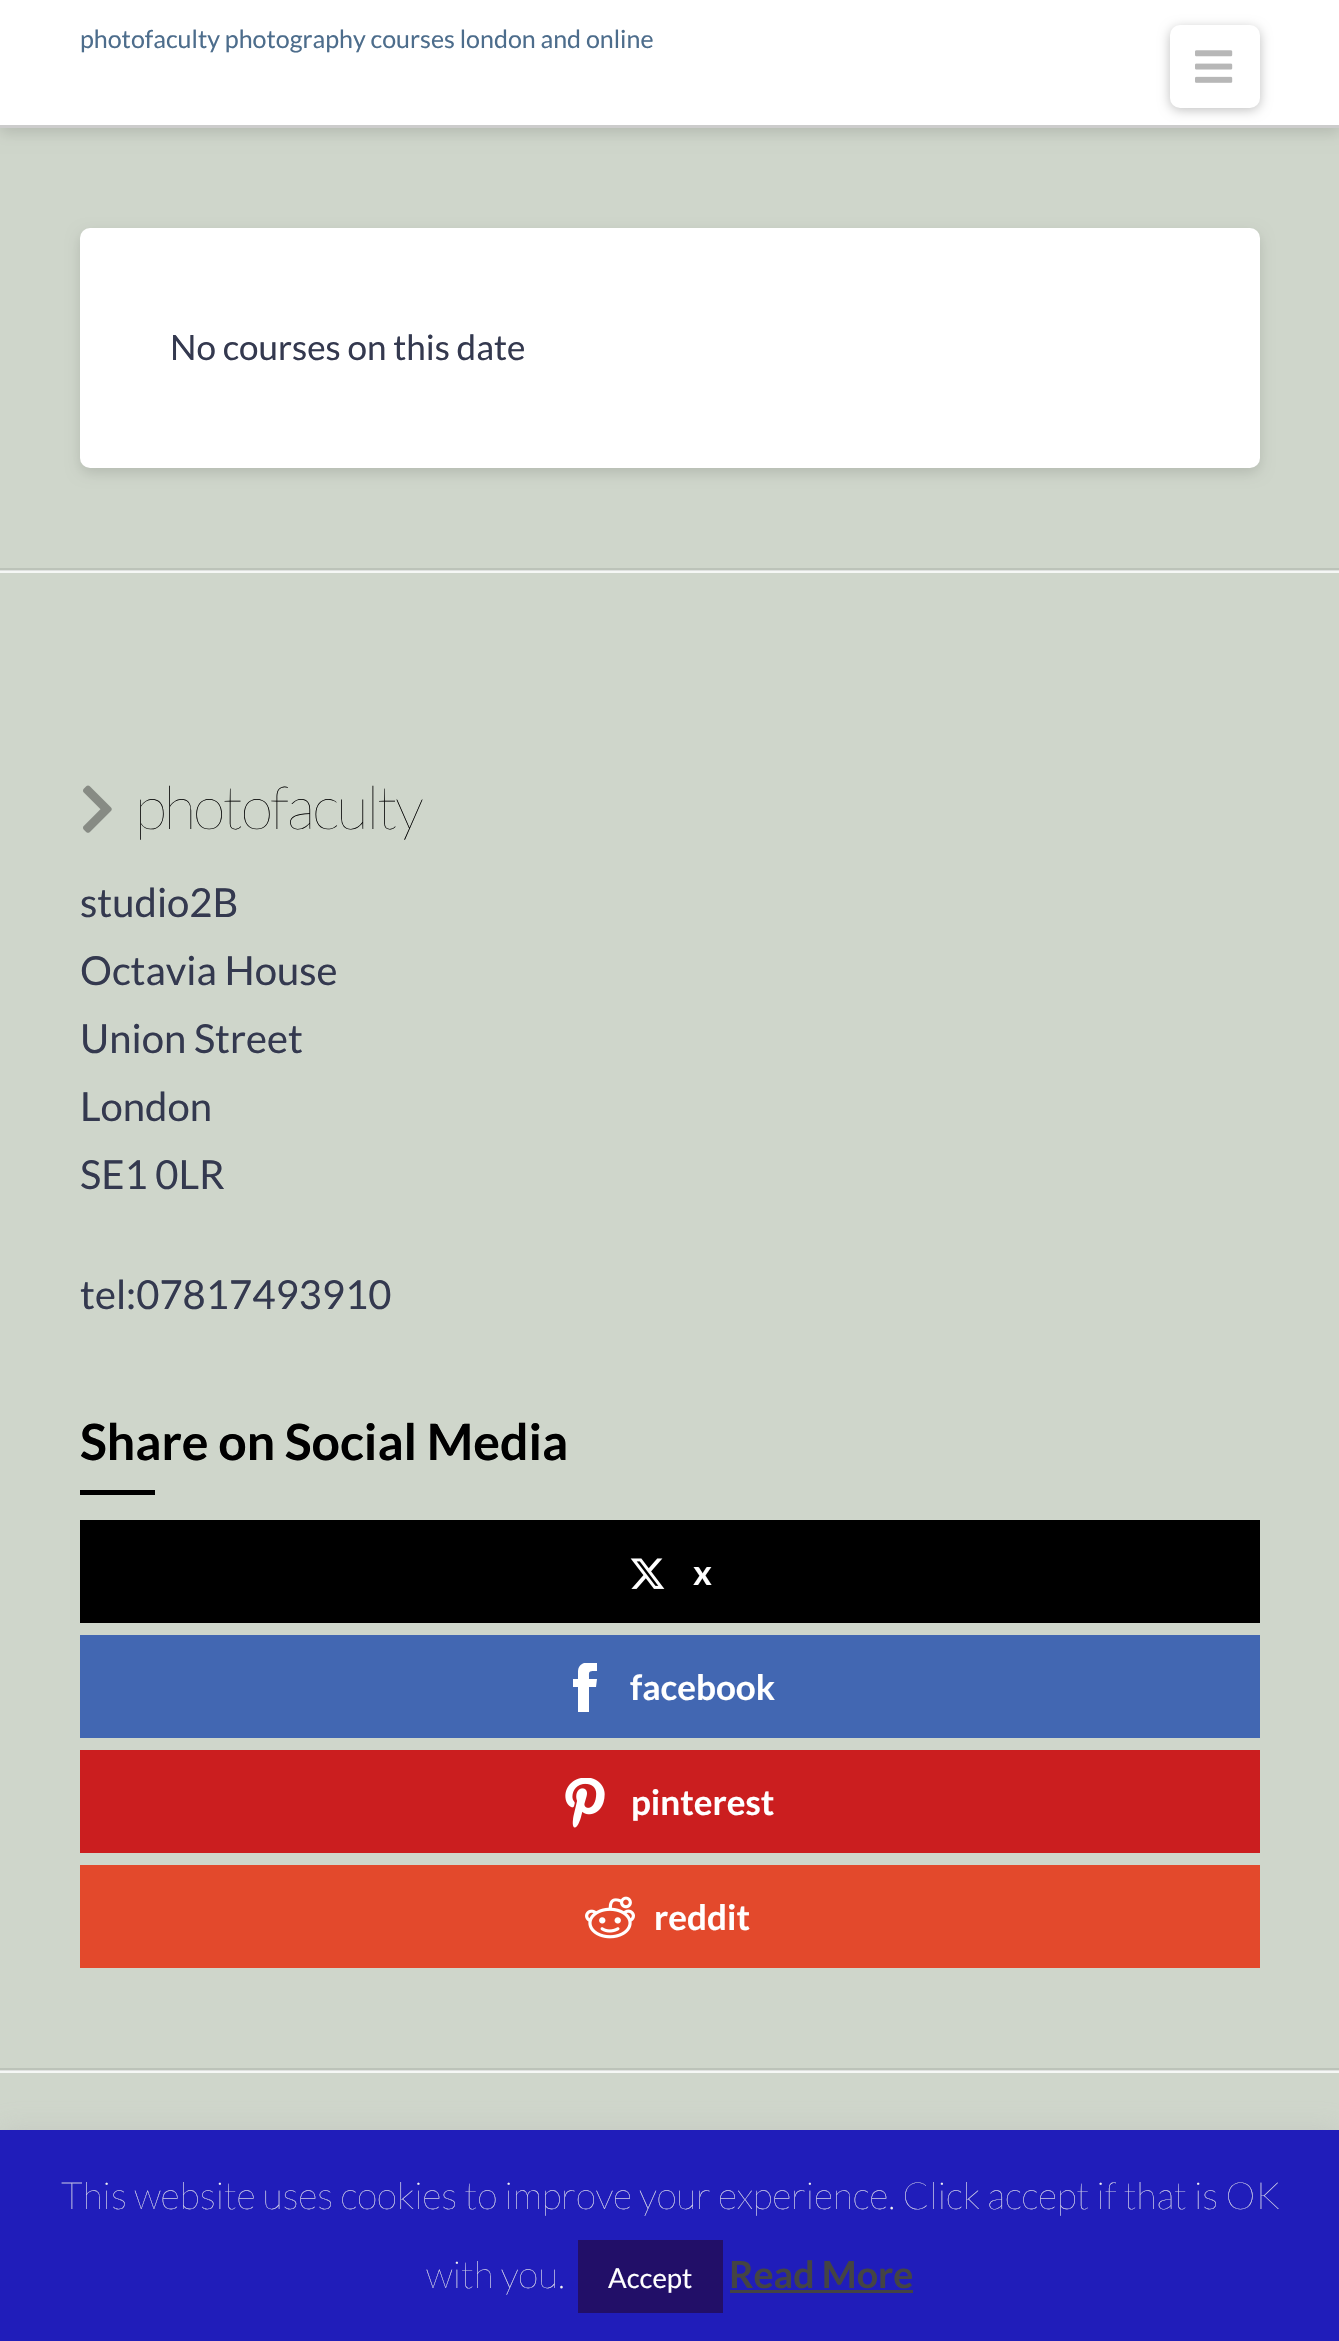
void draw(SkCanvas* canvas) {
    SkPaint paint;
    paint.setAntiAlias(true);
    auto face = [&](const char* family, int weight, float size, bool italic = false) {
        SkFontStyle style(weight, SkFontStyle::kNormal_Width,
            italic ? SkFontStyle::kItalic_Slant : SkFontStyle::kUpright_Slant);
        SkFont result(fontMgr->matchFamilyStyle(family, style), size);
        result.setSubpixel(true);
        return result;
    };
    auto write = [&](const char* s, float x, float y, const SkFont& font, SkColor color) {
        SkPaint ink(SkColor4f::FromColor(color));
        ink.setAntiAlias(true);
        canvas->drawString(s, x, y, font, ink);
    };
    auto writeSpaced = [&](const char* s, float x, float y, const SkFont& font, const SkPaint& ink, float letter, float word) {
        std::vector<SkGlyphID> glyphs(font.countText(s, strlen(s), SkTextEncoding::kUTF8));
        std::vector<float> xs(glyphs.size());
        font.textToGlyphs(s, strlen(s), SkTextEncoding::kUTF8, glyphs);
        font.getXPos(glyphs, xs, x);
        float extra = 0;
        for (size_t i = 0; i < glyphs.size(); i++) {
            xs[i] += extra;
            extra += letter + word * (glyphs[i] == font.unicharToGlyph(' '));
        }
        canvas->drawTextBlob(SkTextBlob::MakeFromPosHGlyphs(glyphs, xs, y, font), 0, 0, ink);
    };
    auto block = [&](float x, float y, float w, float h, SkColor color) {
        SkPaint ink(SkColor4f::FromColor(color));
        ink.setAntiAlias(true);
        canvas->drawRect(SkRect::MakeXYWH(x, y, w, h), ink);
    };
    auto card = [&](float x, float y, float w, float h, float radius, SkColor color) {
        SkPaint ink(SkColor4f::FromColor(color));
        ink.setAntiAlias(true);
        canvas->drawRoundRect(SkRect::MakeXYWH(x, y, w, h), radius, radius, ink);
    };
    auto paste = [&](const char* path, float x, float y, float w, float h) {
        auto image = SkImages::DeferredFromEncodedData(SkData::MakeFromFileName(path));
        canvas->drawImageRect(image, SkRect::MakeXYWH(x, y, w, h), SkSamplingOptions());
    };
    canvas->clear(SkColorSetRGB(207, 214, 203));
    block(0, 2068, 1339, 2, SkColorSetRGB(188, 195, 185));
    block(0, 568, 1339, 2, SkColorSetRGB(188, 195, 185));
    paint.setColor(SkColorSetARGB(33, 0, 0, 0));
    paint.setMaskFilter(SkMaskFilter::MakeBlur(kNormal_SkBlurStyle, 7));
    canvas->drawRect(SkRect::MakeXYWH(0, 5, 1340, 128), paint);
    paint.setMaskFilter(nullptr);
    block(0, 0, 1339, 125, SK_ColorWHITE);
    block(0, 125, 1339, 3, SkColorSetRGB(204, 204, 204));
    auto kFont1 = face("Lato", 400, 25);
    write("photofaculty photography courses london and online", 80, 48, kFont1, SkColorSetRGB(77, 109, 140));
    paint.setColor(SkColorSetARGB(64, 0, 0, 0));
    paint.setMaskFilter(SkMaskFilter::MakeBlur(kNormal_SkBlurStyle, 6));
    canvas->drawRoundRect(SkRect::MakeXYWH(1170, 28, 90, 82), 10, 10, paint);
    paint.setMaskFilter(nullptr);
    card(1170, 25, 90, 83, 10, SK_ColorWHITE);
    paste("pic1.png", 1195, 50, 38, 33);
    paint.setColor(SkColorSetARGB(33, 0, 0, 0));
    paint.setMaskFilter(SkMaskFilter::MakeBlur(kNormal_SkBlurStyle, 7));
    canvas->drawRoundRect(SkRect::MakeXYWH(80, 233, 1180, 240), 10, 10, paint);
    paint.setMaskFilter(nullptr);
    card(80, 228, 1180, 240, 10, SK_ColorWHITE);
    auto kFont2 = face("Lato", 400, 35);
    write("No courses on this date", 170, 360, kFont2, SkColorSetRGB(52, 57, 79));
    block(0, 571, 1339, 2, SkColorSetRGB(245, 247, 245));
    block(0, 570, 1339, 1, SkColorSetRGB(223, 225, 223));
    paste("pic2.png", 83, 785, 29, 48);
    auto kFont3 = face("Lato", 100, 60);
    paint.setColor(SK_ColorBLACK);
    writeSpaced("photofaculty", 135, 829, kFont3, paint, -2.3f, 0);
    auto kFont4 = face("Lato", 400, 40);
    write("studio2B", 80, 917, kFont4, SkColorSetRGB(52, 57, 79));
    write("Octavia House", 80, 985, kFont4, SkColorSetRGB(52, 57, 79));
    write("Union Street", 80, 1053, kFont4, SkColorSetRGB(52, 57, 79));
    write("London", 80, 1121, kFont4, SkColorSetRGB(52, 57, 79));
    write("SE1 0LR", 80, 1189, kFont4, SkColorSetRGB(52, 57, 79));
    write("tel:07817493910", 80, 1309, kFont4, SkColorSetRGB(52, 57, 79));
    auto kFont5 = face("Lato", 700, 50);
    write("Share on Social Media", 80, 1460, kFont5, SK_ColorBLACK);
    block(80, 1490, 75, 5, SK_ColorBLACK);
    block(80, 1520, 1180, 103, SK_ColorBLACK);
    paste("pic3.png", 630, 1558, 35, 31);
    auto kFont6 = face("Lato", 700, 35);
    write("x", 693, 1585, kFont6, SK_ColorWHITE);
    block(80, 1635, 1180, 103, SkColorSetRGB(66, 103, 178));
    canvas->save();
    canvas->clipRect(SkRect::MakeXYWH(560, 1663, 50, 50));
    paint.setColor(SK_ColorWHITE);
    canvas->drawPath(SkPathBuilder().moveTo(578, 1672).lineTo(578, 1679).lineTo(573, 1679).lineTo(573, 1687).lineTo(578, 1687).lineTo(578, 1712).lineTo(589, 1712).lineTo(589, 1687).lineTo(596, 1687).lineTo(597, 1679).lineTo(589, 1679).cubicTo(589, 1671, 588, 1671, 597, 1671).lineTo(597, 1662).cubicTo(589, 1662, 578, 1661, 578, 1672).close().detach(), paint);
    canvas->restore();
    write("facebook", 630, 1700, kFont6, SK_ColorWHITE);
    block(80, 1750, 1180, 103, SkColorSetRGB(203, 30, 31));
    paste("pic4.png", 565, 1778, 40, 50);
    write("pinterest", 631, 1815, kFont6, SK_ColorWHITE);
    block(80, 1865, 1180, 103, SkColorSetRGB(227, 73, 44));
    paste("pic5.png", 585, 1896, 50, 43);
    write("reddit", 654, 1930, kFont6, SK_ColorWHITE);
    block(0, 2071, 1339, 2, SkColorSetRGB(245, 247, 245));
    block(0, 2070, 1339, 1, SkColorSetRGB(223, 225, 223));
    paint.setColor(SkColorSetARGB(77, 172, 171, 171));
    paint.setMaskFilter(SkMaskFilter::MakeBlur(kNormal_SkBlurStyle, 12.5f));
    canvas->drawRect(SkRect::MakeXYWH(0, 2128, 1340, 212), paint);
    paint.setMaskFilter(nullptr);
    block(0, 2130, 1339, 211, SkColorSetRGB(32, 29, 186));
    auto kFont7 = face("Lato", 100, 37.5f);
    write("This website uses cookies to improve your experience. Click accept if that is OK", 61, 2209, kFont7, SkColorSetRGB(242, 242, 242));
    write("with you.", 426, 2288, kFont7, SkColorSetRGB(242, 242, 242));
    block(578, 2240, 145, 73, SkColorSetRGB(34, 15, 104));
    auto kFont8 = face("Lato", 400, 27.5f);
    write("Accept", 608, 2288, kFont8, SK_ColorWHITE);
    auto kFont9 = face("Lato", 700, 37.5f);
    write("Read More", 729, 2288, kFont9, SkColorSetRGB(68, 68, 68));
    block(730, 2290, 183, 3, SkColorSetRGB(68, 68, 68));
}
